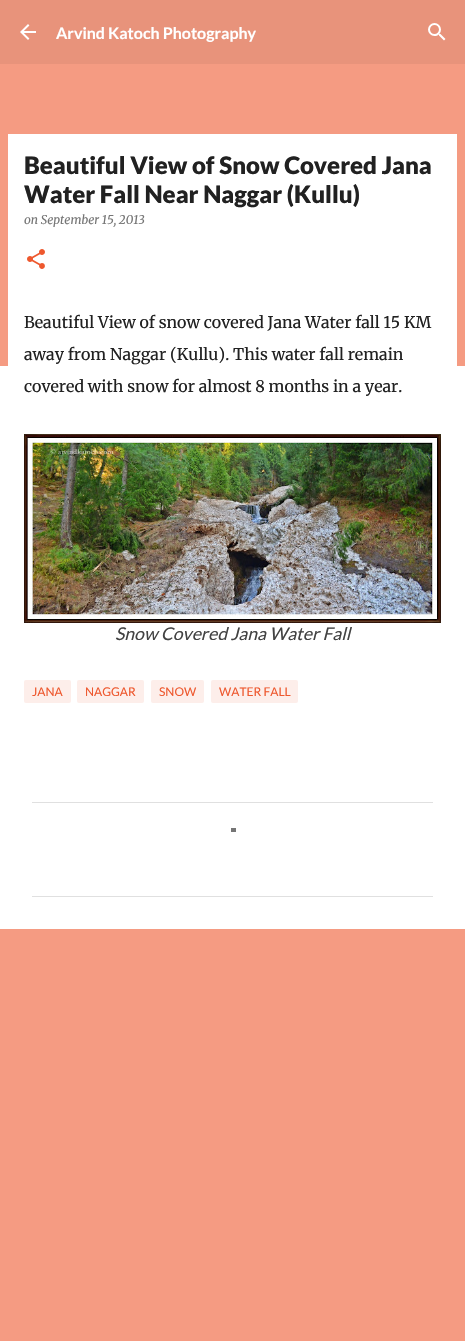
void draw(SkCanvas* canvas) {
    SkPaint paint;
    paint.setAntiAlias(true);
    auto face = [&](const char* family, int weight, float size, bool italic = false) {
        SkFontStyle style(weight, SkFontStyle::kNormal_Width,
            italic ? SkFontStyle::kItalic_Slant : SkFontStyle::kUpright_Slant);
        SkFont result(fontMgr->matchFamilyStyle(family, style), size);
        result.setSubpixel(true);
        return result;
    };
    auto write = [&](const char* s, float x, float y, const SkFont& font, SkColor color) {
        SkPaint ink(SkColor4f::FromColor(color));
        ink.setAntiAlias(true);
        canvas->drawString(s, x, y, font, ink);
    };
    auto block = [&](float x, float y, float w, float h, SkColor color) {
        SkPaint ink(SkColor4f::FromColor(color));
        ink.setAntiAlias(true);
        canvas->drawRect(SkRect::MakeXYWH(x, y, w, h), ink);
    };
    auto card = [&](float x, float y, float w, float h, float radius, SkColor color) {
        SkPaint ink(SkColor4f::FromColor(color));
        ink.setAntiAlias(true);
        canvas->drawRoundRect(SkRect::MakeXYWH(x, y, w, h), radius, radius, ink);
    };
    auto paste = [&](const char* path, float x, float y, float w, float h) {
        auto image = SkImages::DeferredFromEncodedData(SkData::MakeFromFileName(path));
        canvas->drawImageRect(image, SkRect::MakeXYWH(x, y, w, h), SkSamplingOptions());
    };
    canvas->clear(SkColorSetRGB(245, 155, 130));
    block(0, 0, 465, 64, SkColorSetRGB(232, 147, 123));
    paste("pic1.png", 20, 24, 16, 16);
    auto kFont1 = face("Lato", 700, 16);
    write("Arvind Katoch Photography", 56, 39, kFont1, SK_ColorWHITE);
    paste("pic2.png", 428, 23, 18, 18);
    block(0, 366, 465, 563, SK_ColorWHITE);
    block(8, 134, 449, 232, SK_ColorWHITE);
    auto kFont2 = face("Lato", 900, 24);
    write("Beautiful View of Snow Covered Jana", 24, 174, kFont2, SkColorSetRGB(33, 33, 33));
    write("Water Fall Near Naggar (Kullu)", 24, 203, kFont2, SkColorSetRGB(33, 33, 33));
    auto kFont3 = face("Merriweather", 400, 12, true);
    write("on September 15, 2013", 24, 224, kFont3, SkColorSetRGB(117, 117, 117));
    paste("pic3.png", 27, 249, 18, 20);
    auto kFont4 = face("Merriweather", 400, 16);
    write("Beautiful View of snow covered Jana Water fall 15 KM", 24, 328, kFont4, SkColorSetRGB(33, 33, 33));
    write("away from Naggar (Kullu). This water fall remain", 24, 360, kFont4, SkColorSetRGB(33, 33, 33));
    write("covered with snow for almost 8 months in a year.", 24, 392, kFont4, SkColorSetRGB(33, 33, 33));
    paste("pic4.png", 24, 434, 417, 189);
    auto kFont5 = face("Lato", 400, 17.6f, true);
    write("Snow Covered Jana Water Fall", 115, 640, kFont5, SkColorSetRGB(66, 66, 66));
    card(24, 680, 47, 23, 2, SkColorSetRGB(253, 238, 234));
    auto kFont6 = face("Lato", 400, 12);
    write("JANA", 32, 696, kFont6, SkColorSetRGB(238, 88, 46));
    card(77, 680, 67, 23, 2, SkColorSetRGB(253, 238, 234));
    write("NAGGAR", 85, 696, kFont6, SkColorSetRGB(238, 88, 46));
    card(151, 680, 53, 23, 2, SkColorSetRGB(253, 238, 234));
    write("SNOW", 159, 696, kFont6, SkColorSetRGB(238, 88, 46));
    card(211, 680, 87, 23, 2, SkColorSetRGB(253, 238, 234));
    write("WATER FALL", 219, 696, kFont6, SkColorSetRGB(238, 88, 46));
    block(32, 802, 401, 1, SkColorSetRGB(224, 224, 224));
    block(32, 896, 401, 1, SkColorSetRGB(224, 224, 224));
    block(231, 828, 5, 4, SkColorSetRGB(117, 117, 117));
}
